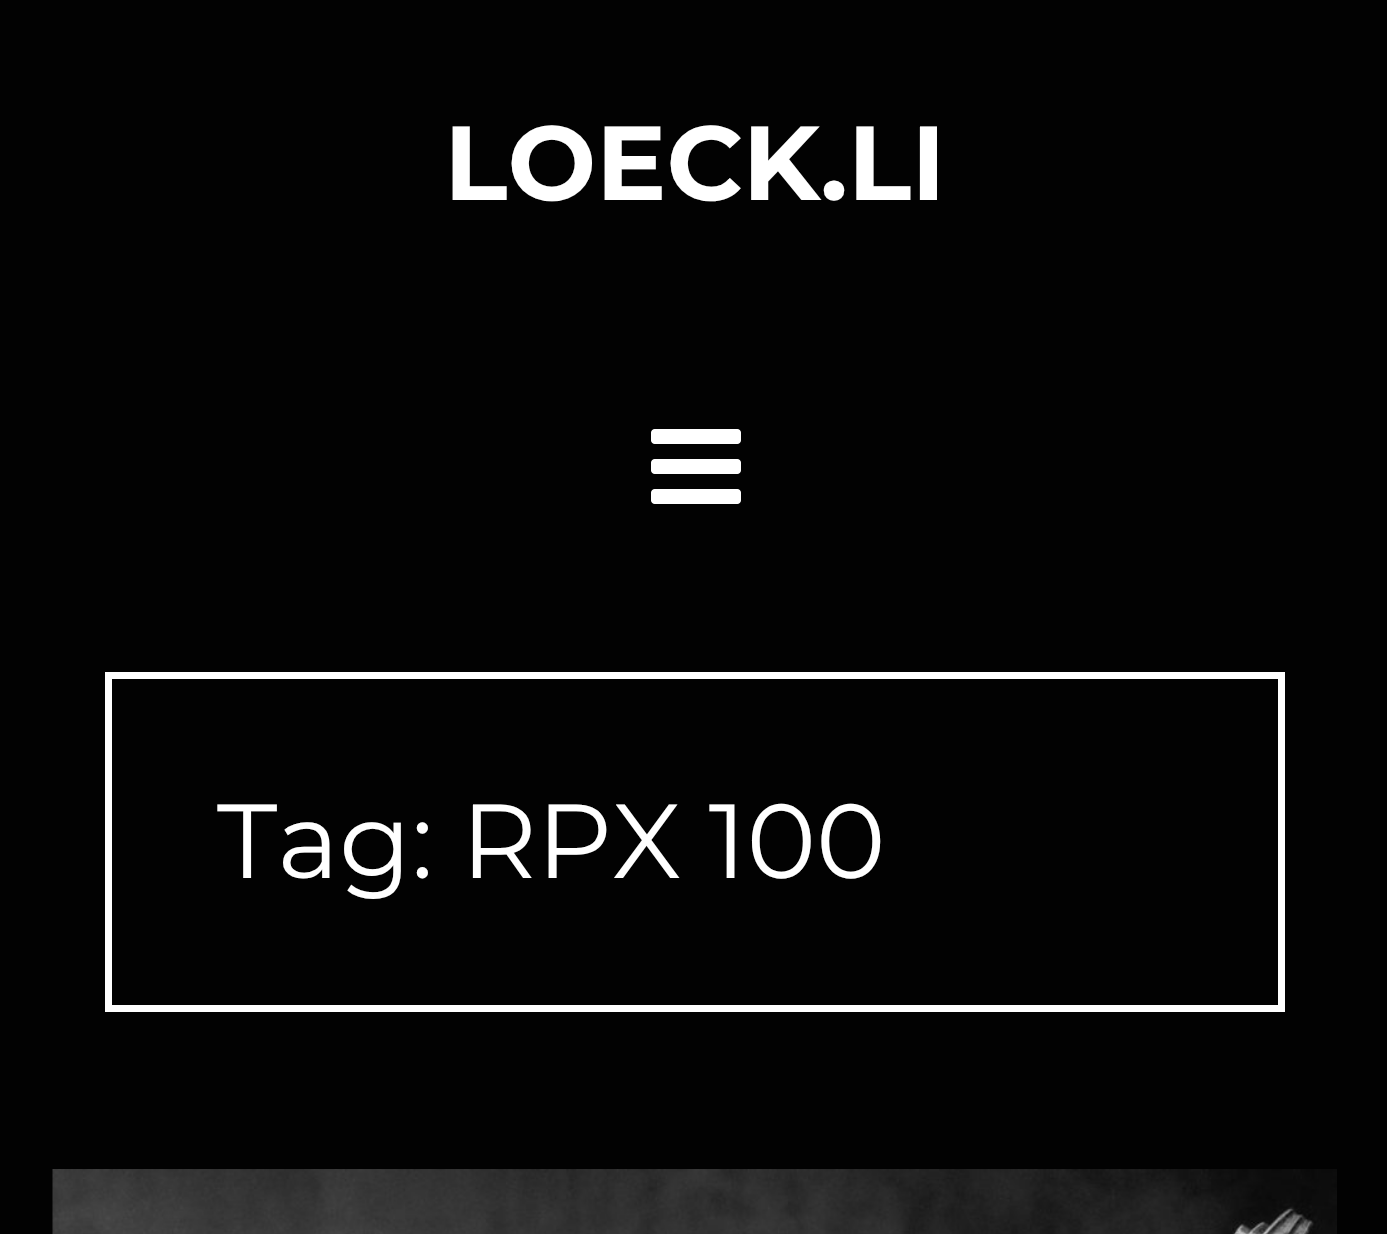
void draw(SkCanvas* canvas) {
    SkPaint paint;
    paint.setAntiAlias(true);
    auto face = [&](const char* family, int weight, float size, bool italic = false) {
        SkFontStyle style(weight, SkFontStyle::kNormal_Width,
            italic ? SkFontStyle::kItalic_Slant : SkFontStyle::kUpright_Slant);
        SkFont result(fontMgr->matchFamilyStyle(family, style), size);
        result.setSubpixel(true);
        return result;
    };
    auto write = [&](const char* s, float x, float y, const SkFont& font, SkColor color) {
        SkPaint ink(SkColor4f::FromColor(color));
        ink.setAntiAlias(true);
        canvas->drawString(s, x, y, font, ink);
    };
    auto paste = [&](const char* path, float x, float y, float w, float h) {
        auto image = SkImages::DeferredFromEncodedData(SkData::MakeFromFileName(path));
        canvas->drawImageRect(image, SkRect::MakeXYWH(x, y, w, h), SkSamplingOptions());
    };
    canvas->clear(SkColorSetRGB(2, 2, 2));
    auto kFont1 = face("Montserrat", 700, 105);
    write("LOECK.LI", 444, 200, kFont1, SK_ColorWHITE);
    paste("pic1.png", 651, 429, 90, 75);
    paint.setStyle(SkPaint::kStroke_Style);
    paint.setStrokeWidth(7);
    paint.setColor(SK_ColorWHITE);
    canvas->drawRect(SkRect::MakeXYWH(108.5f, 675.5f, 1173, 333), paint);
    auto kFont2 = face("Montserrat", 400, 105);
    write("Tag: RPX 100", 217, 878, kFont2, SK_ColorWHITE);
    paste("pic2.png", 52, 1169, 1285, 65);
}
